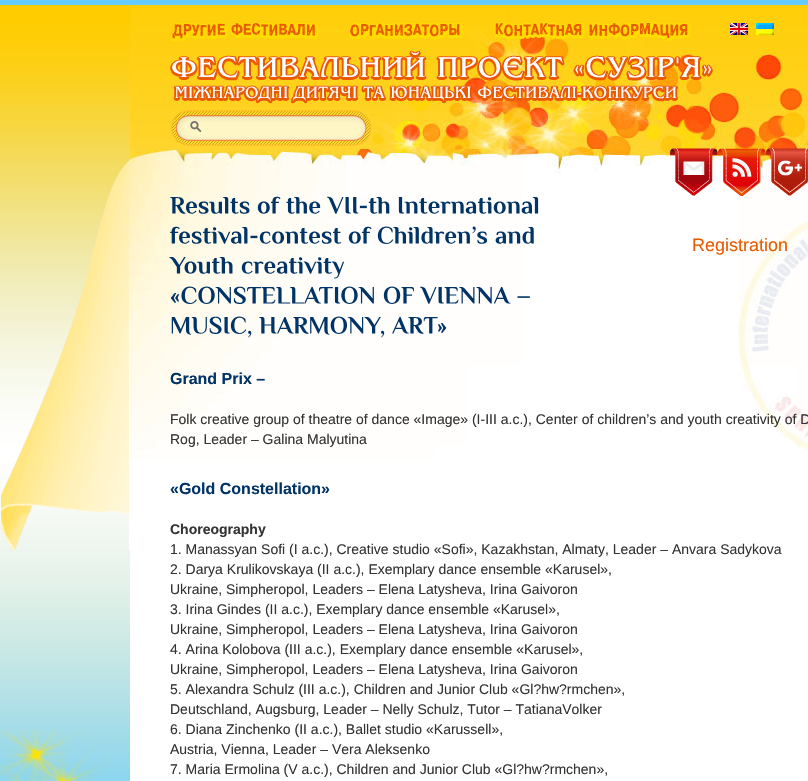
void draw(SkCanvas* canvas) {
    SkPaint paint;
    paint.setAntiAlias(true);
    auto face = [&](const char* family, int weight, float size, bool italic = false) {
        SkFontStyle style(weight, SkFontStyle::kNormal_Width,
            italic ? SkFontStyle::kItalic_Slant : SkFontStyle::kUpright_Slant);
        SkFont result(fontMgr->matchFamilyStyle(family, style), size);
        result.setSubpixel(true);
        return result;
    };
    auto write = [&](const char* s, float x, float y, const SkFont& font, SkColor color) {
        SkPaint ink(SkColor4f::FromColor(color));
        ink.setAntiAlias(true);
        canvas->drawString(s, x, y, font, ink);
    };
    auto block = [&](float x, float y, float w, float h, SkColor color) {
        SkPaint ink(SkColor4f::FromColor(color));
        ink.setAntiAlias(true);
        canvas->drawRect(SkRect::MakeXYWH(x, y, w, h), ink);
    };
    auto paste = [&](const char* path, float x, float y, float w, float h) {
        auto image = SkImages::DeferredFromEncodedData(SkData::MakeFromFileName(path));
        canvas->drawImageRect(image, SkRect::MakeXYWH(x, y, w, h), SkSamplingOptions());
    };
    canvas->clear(SK_ColorWHITE);
    paste("pic1.png", 0, 5, 130, 776);
    block(0, 0, 808, 5, SkColorSetRGB(102, 204, 255));
    paste("pic2.png", 130, 5, 678, 144);
    paste("pic3.png", 171, 20, 147, 21);
    paste("pic4.png", 349, 22, 114, 18);
    paste("pic5.png", 494, 22, 197, 19);
    paste("pic6.png", 730, 23, 18, 12);
    paste("pic7.png", 756, 23, 18, 12);
    paste("pic8.png", 170, 50, 543, 54);
    paste("pic9.png", 171, 110, 201, 36);
    paste("pic10.png", 1, 160, 129, 390);
    paste("pic15.png", 130, 149, 678, 311);
    paste("pic11.png", 670, 148, 48, 48);
    paste("pic12.png", 718, 148, 48, 48);
    paste("pic13.png", 766, 148, 42, 48);
    auto kFont1 = face("Liberation Sans", 400, 18);
    write("Registration", 692, 251, kFont1, SkColorSetRGB(234, 90, 0));
    paste("pic14.png", 0, 730, 111, 51);
    paste("pic16.png", 170, 197, 80, 17);
    paste("pic17.png", 257, 196, 24, 18);
    paste("pic18.png", 286, 197, 35, 17);
    paste("pic19.png", 327, 196, 63, 18);
    paste("pic20.png", 398, 197, 141, 17);
    paste("pic21.png", 170, 226, 172, 18);
    paste("pic22.png", 348, 226, 24, 18);
    paste("pic23.png", 377, 226, 111, 18);
    paste("pic24.png", 495, 227, 39, 17);
    paste("pic25.png", 169, 257, 64, 17);
    paste("pic26.png", 241, 257, 103, 22);
    paste("pic27.png", 170, 286, 204, 18);
    paste("pic28.png", 383, 286, 31, 18);
    paste("pic29.png", 420, 286, 91, 18);
    paste("pic30.png", 517, 296, 13, 2);
    paste("pic31.png", 171, 316, 81, 22);
    paste("pic32.png", 259, 316, 126, 22);
    paste("pic33.png", 392, 317, 55, 17);
    auto kFont2 = face("Liberation Sans", 700, 16);
    write("Grand Prix –", 170, 384, kFont2, SkColorSetRGB(0, 51, 102));
    auto kFont3 = face("Liberation Sans", 400, 14);
    write("Folk creative group of theatre of dance «Image» (I-III a.c.), Center of children’s and youth creativity of D", 170, 424, kFont3, SkColorSetRGB(51, 51, 51));
    write("Rog, Leader – Galina Malyutina", 170, 444, kFont3, SkColorSetRGB(51, 51, 51));
    write("«Gold Constellation»", 170, 494, kFont2, SkColorSetRGB(0, 51, 102));
    auto kFont4 = face("Liberation Sans", 700, 14);
    write("Choreography", 170, 534, kFont4, SkColorSetRGB(51, 51, 51));
    write("1. Manassyan Sofi (I a.c.), Creative studio «Sofi», Kazakhstan, Almaty, Leader – Anvara Sadykova", 170, 554, kFont3, SkColorSetRGB(51, 51, 51));
    write("2. Darya Krulikovskaya (II a.c.), Exemplary dance ensemble «Karusel»,", 170, 574, kFont3, SkColorSetRGB(51, 51, 51));
    write("Ukraine, Simpheropol, Leaders – Elena Latysheva, Irina Gaivoron", 170, 594, kFont3, SkColorSetRGB(51, 51, 51));
    write("3. Irina Gindes (II a.c.), Exemplary dance ensemble «Karusel»,", 170, 614, kFont3, SkColorSetRGB(51, 51, 51));
    write("Ukraine, Simpheropol, Leaders – Elena Latysheva, Irina Gaivoron", 170, 634, kFont3, SkColorSetRGB(51, 51, 51));
    write("4. Arina Kolobova (III a.c.), Exemplary dance ensemble «Karusel»,", 170, 654, kFont3, SkColorSetRGB(51, 51, 51));
    write("Ukraine, Simpheropol, Leaders – Elena Latysheva, Irina Gaivoron", 170, 674, kFont3, SkColorSetRGB(51, 51, 51));
    write("5. Alexandra Schulz (III a.c.), Children and Junior Club «Gl?hw?rmchen»,", 170, 694, kFont3, SkColorSetRGB(51, 51, 51));
    write("Deutschland, Augsburg, Leader – Nelly Schulz, Tutor – TatianaVolker", 170, 714, kFont3, SkColorSetRGB(51, 51, 51));
    write("6. Diana Zinchenko (II a.c.), Ballet studio «Karussell»,", 170, 734, kFont3, SkColorSetRGB(51, 51, 51));
    write("Austria, Vienna, Leader – Vera Aleksenko", 170, 754, kFont3, SkColorSetRGB(51, 51, 51));
    write("7. Maria Ermolina (V a.c.), Children and Junior Club «Gl?hw?rmchen»,", 170, 774, kFont3, SkColorSetRGB(51, 51, 51));
}
